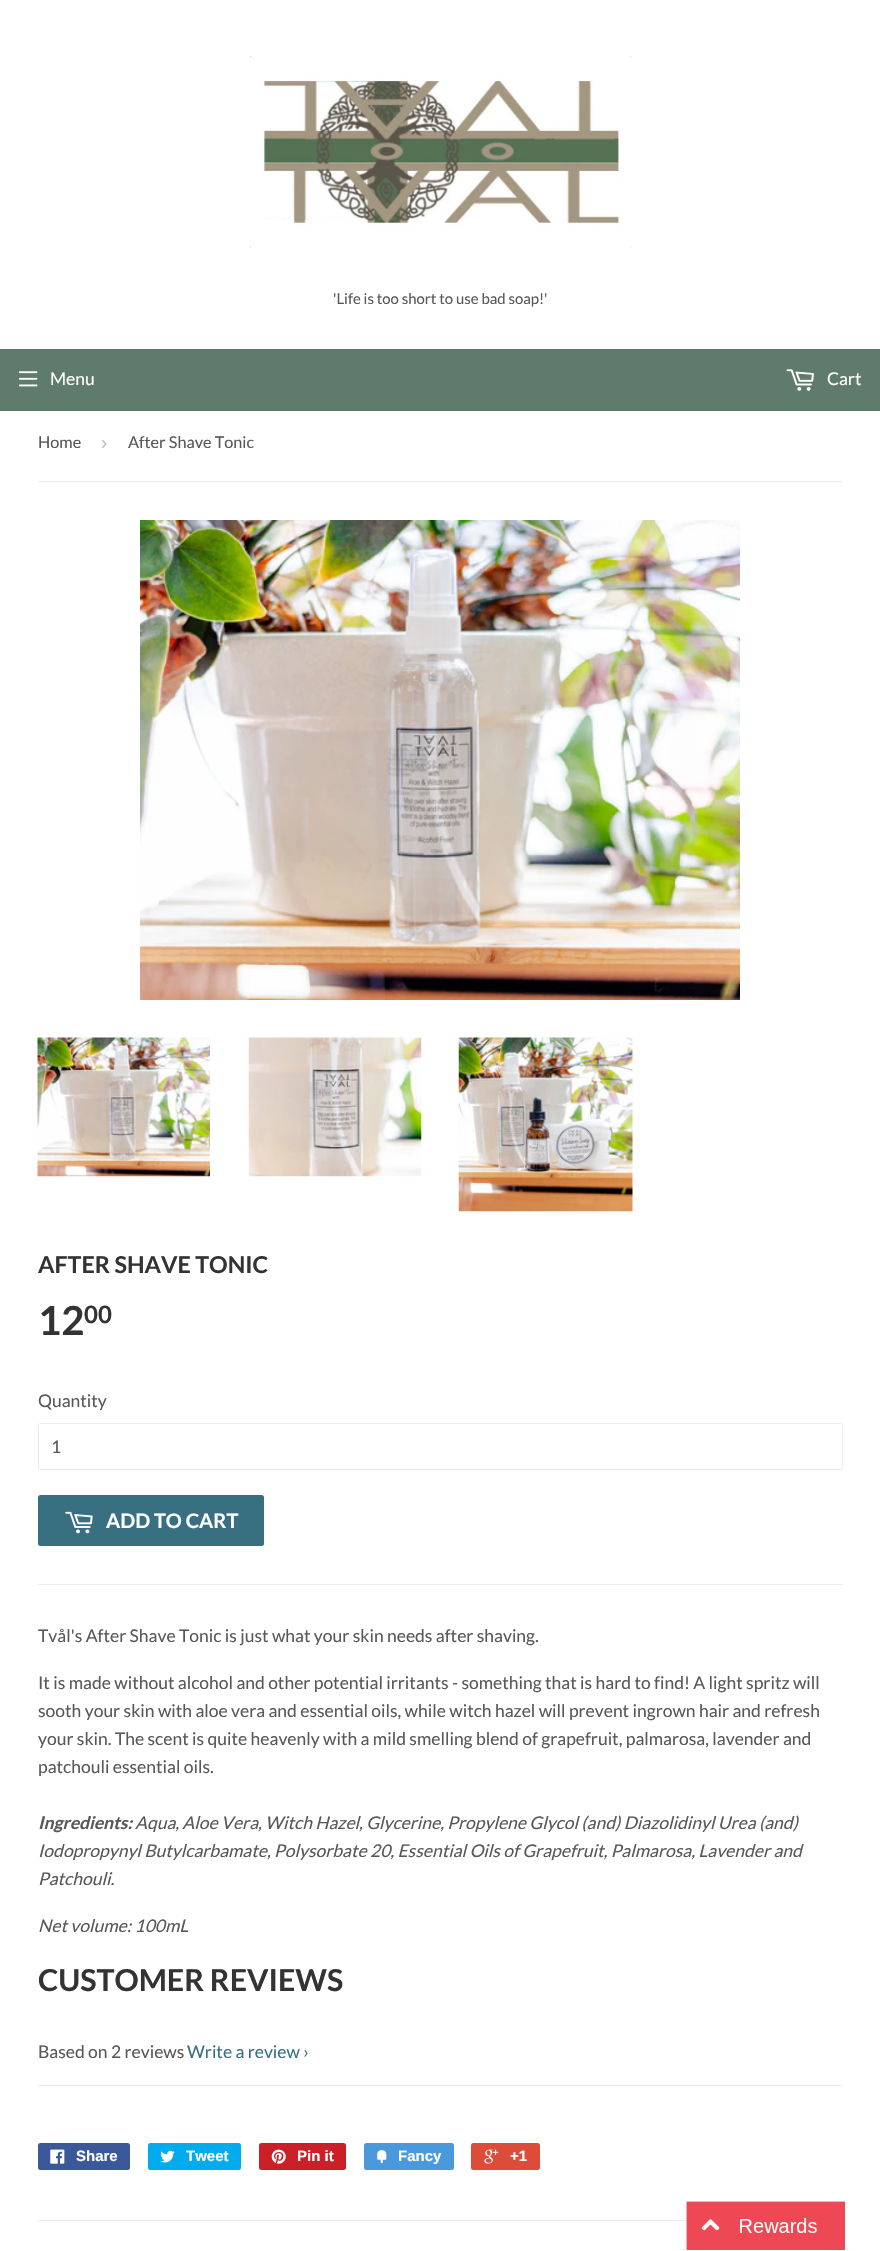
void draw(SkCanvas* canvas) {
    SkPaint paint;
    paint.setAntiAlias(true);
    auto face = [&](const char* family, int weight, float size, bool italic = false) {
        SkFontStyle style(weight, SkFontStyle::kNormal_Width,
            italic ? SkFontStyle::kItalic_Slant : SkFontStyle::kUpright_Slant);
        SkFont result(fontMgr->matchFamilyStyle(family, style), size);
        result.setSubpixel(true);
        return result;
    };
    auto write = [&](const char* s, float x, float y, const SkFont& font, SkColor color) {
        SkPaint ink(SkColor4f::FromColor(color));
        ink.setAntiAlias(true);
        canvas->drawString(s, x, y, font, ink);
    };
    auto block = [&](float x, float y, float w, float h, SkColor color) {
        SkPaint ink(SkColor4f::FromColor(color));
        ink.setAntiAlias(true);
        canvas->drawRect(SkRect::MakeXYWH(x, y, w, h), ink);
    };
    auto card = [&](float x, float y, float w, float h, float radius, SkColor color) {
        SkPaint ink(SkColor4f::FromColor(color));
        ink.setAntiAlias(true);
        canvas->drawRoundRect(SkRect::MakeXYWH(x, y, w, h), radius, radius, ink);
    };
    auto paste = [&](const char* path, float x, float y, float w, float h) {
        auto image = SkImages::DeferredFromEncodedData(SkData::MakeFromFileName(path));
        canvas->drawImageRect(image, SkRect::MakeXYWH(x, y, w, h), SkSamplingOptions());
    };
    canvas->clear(SK_ColorWHITE);
    paste("pic1.png", 250, 56, 382, 192);
    auto kFont1 = face("Lato", 400, 14.9f);
    write("'Life is too short to use bad soap!'", 333, 304, kFont1, SkColorSetRGB(88, 88, 88));
    block(0, 349, 880, 62, SkColorSetRGB(94, 123, 107));
    paste("pic2.png", 19, 371, 19, 16);
    auto kFont2 = face("Lato", 400, 17.5f);
    write("Menu", 50, 385, kFont2, SK_ColorWHITE);
    paste("pic3.png", 786, 369, 28, 22);
    write("Cart", 827, 385, kFont2, SK_ColorWHITE);
    block(38, 481, 805, 1, SkColorSetRGB(236, 236, 236));
    auto kFont3 = face("Lato", 400, 16.25f);
    write("Home", 38, 448, kFont3, SkColorSetRGB(88, 88, 88));
    auto kFont4 = face("Liberation Sans", 400, 19);
    write("›", 101, 449, kFont4, SkColorSetRGB(187, 187, 187));
    write("After Shave Tonic", 128, 448, kFont3, SkColorSetRGB(88, 88, 88));
    paste("pic4.png", 140, 520, 600, 480);
    paste("pic5.png", 37, 1037, 173, 140);
    paste("pic6.png", 248, 1037, 174, 140);
    paste("pic7.png", 458, 1037, 175, 175);
    auto kFont5 = face("Lato", 700, 23.25f);
    write("AFTER SHAVE TONIC", 38, 1273, kFont5, SkColorSetRGB(51, 51, 51));
    auto kFont6 = face("Lato", 700, 40);
    write("12", 38, 1335, kFont6, SkColorSetRGB(51, 51, 51));
    auto kFont7 = face("Lato", 700, 24);
    write("00", 84, 1323, kFont7, SkColorSetRGB(51, 51, 51));
    write("Quantity", 38, 1407, kFont2, SkColorSetRGB(88, 88, 88));
    paint.setStyle(SkPaint::kStroke_Style);
    paint.setStrokeWidth(1);
    paint.setColor(SkColorSetRGB(236, 236, 236));
    canvas->drawRoundRect(SkRect::MakeXYWH(38.5f, 1423.5f, 804, 46), 2, 2, paint);
    write("1", 51, 1453, kFont2, SkColorSetRGB(88, 88, 88));
    card(38, 1495, 226, 51, 2.5f, SkColorSetRGB(57, 112, 129));
    paste("pic8.png", 65, 1511, 28, 23);
    auto kFont8 = face("Lato", 700, 20);
    write("ADD TO CART", 106, 1528, kFont8, SK_ColorWHITE);
    block(38, 1584, 805, 1, SkColorSetRGB(236, 236, 236));
    write("Tvål's After Shave Tonic is just what your skin needs after shaving.", 38, 1642, kFont2, SkColorSetRGB(88, 88, 88));
    write("It is made without alcohol and other potential irritants - something that is hard to find! A light spritz will", 38, 1689, kFont2, SkColorSetRGB(88, 88, 88));
    write("sooth your skin with aloe vera and essential oils, while witch hazel will prevent ingrown hair and refresh", 38, 1717, kFont2, SkColorSetRGB(88, 88, 88));
    write("your skin. The scent is quite heavenly with a mild smelling blend of grapefruit, palmarosa, lavender and", 38, 1745, kFont2, SkColorSetRGB(88, 88, 88));
    write("patchouli essential oils.", 38, 1773, kFont2, SkColorSetRGB(88, 88, 88));
    auto kFont9 = face("Lato", 700, 17.5f, true);
    write("Ingredients:", 38, 1829, kFont9, SkColorSetRGB(88, 88, 88));
    auto kFont10 = face("Lato", 400, 17.5f, true);
    write("Aqua, Aloe Vera, Witch Hazel, Glycerine, Propylene Glycol (and) Diazolidinyl Urea (and)", 135, 1829, kFont10, SkColorSetRGB(88, 88, 88));
    write("Iodopropynyl Butylcarbamate, Polysorbate 20, Essential Oils of Grapefruit, Palmarosa, Lavender and", 38, 1857, kFont10, SkColorSetRGB(88, 88, 88));
    write("Patchouli.", 38, 1885, kFont10, SkColorSetRGB(88, 88, 88));
    write("Net volume: 100mL", 38, 1932, kFont10, SkColorSetRGB(88, 88, 88));
    auto kFont11 = face("Lato", 700, 30.25f);
    write("CUSTOMER REVIEWS", 38, 1991, kFont11, SkColorSetRGB(51, 51, 51));
    block(38, 2085, 805, 1, SkColorSetRGB(236, 236, 236));
    write("Based on 2 reviews", 38, 2058, kFont2, SkColorSetRGB(88, 88, 88));
    write("Write a review ›", 187, 2058, kFont2, SkColorSetRGB(57, 112, 129));
    card(38, 2143, 92, 27, 2.5f, SkColorSetRGB(59, 89, 152));
    paste("pic9.png", 50, 2149, 15, 15);
    auto kFont12 = face("Liberation Sans", 700, 15);
    write("Share", 76, 2161, kFont12, SK_ColorWHITE);
    card(148, 2143, 93, 27, 2.5f, SkColorSetRGB(0, 172, 237));
    paste("pic10.png", 160, 2150, 15, 13);
    write("Tweet", 186, 2161, kFont12, SK_ColorWHITE);
    card(259, 2143, 87, 27, 2.5f, SkColorSetRGB(203, 32, 39));
    paste("pic11.png", 271, 2149, 15, 15);
    write("Pin it", 297, 2161, kFont12, SK_ColorWHITE);
    card(364, 2143, 90, 27, 2.5f, SkColorSetRGB(73, 153, 220));
    paste("pic12.png", 377, 2150, 10, 14);
    write("Fancy", 398, 2161, kFont12, SK_ColorWHITE);
    card(471, 2143, 69, 27, 2.5f, SkColorSetRGB(221, 75, 57));
    paste("pic13.png", 484, 2149, 15, 15);
    write("+1", 510, 2161, kFont12, SK_ColorWHITE);
    block(38, 2220, 649, 1, SkColorSetRGB(236, 236, 236));
    paste("pic14.png", 686, 2201, 159, 49);
}
